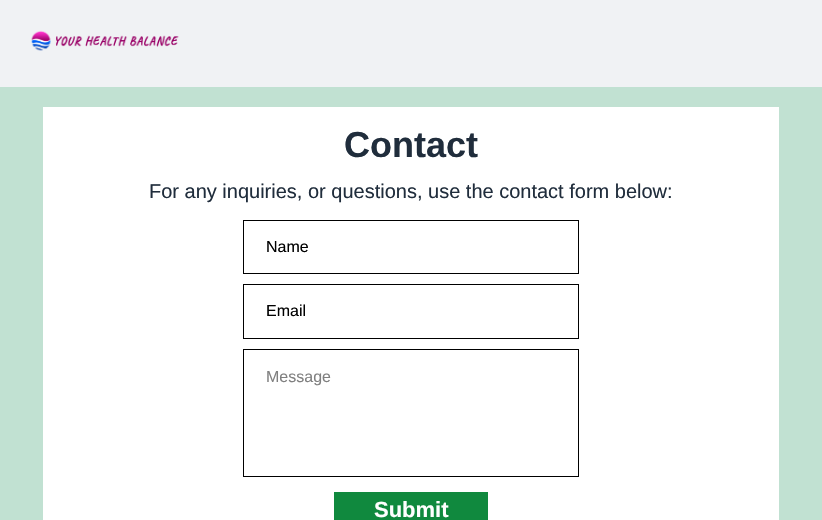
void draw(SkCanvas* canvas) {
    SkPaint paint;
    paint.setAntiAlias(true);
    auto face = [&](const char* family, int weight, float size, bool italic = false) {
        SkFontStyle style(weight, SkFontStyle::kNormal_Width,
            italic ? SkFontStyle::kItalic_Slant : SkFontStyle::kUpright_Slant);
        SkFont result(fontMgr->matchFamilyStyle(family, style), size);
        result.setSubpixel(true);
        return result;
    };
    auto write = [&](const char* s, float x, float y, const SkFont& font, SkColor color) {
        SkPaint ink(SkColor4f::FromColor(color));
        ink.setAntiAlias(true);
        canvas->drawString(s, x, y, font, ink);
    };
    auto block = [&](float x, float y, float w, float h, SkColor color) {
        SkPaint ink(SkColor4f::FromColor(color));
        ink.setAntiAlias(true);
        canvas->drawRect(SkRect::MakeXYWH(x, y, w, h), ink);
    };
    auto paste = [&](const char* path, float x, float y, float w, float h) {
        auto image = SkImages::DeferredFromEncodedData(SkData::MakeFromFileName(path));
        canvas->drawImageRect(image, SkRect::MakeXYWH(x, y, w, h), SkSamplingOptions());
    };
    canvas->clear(SkColorSetRGB(193, 225, 210));
    block(0, 0, 822, 87, SkColorSetRGB(240, 242, 244));
    paste("pic1.png", 31, 30, 148, 21);
    block(43, 107, 736, 413, SK_ColorWHITE);
    auto kFont1 = face("Liberation Sans", 700, 36);
    write("Contact", 344, 157, kFont1, SkColorSetRGB(32, 45, 60));
    auto kFont2 = face("Liberation Sans", 400, 20);
    write("For any inquiries, or questions, use the contact form below:", 149, 198, kFont2, SkColorSetRGB(32, 45, 60));
    paint.setStyle(SkPaint::kStroke_Style);
    paint.setStrokeWidth(1);
    paint.setColor(SK_ColorBLACK);
    canvas->drawRect(SkRect::MakeXYWH(243.5f, 220.5f, 335, 53), paint);
    auto kFont3 = face("Liberation Sans", 400, 16);
    write("Name", 266, 252, kFont3, SK_ColorBLACK);
    canvas->drawRect(SkRect::MakeXYWH(243.5f, 284.5f, 335, 54), paint);
    write("Email", 266, 316, kFont3, SK_ColorBLACK);
    canvas->drawRect(SkRect::MakeXYWH(243.5f, 349.5f, 335, 127), paint);
    write("Message", 266, 382, kFont3, SkColorSetRGB(128, 128, 128));
    block(334, 492, 154, 28, SkColorSetRGB(16, 137, 62));
    auto kFont4 = face("Liberation Sans", 700, 22);
    write("Submit", 374, 517, kFont4, SK_ColorWHITE);
}
